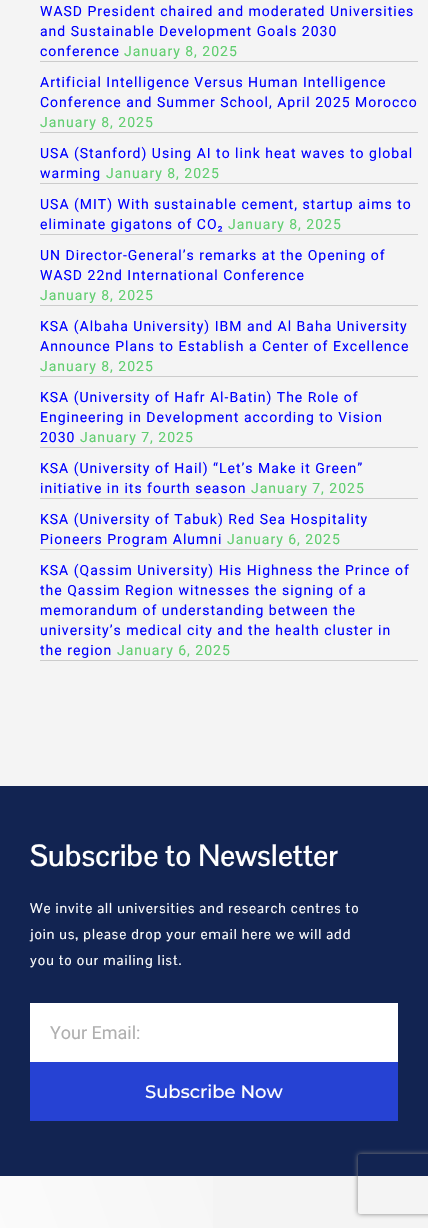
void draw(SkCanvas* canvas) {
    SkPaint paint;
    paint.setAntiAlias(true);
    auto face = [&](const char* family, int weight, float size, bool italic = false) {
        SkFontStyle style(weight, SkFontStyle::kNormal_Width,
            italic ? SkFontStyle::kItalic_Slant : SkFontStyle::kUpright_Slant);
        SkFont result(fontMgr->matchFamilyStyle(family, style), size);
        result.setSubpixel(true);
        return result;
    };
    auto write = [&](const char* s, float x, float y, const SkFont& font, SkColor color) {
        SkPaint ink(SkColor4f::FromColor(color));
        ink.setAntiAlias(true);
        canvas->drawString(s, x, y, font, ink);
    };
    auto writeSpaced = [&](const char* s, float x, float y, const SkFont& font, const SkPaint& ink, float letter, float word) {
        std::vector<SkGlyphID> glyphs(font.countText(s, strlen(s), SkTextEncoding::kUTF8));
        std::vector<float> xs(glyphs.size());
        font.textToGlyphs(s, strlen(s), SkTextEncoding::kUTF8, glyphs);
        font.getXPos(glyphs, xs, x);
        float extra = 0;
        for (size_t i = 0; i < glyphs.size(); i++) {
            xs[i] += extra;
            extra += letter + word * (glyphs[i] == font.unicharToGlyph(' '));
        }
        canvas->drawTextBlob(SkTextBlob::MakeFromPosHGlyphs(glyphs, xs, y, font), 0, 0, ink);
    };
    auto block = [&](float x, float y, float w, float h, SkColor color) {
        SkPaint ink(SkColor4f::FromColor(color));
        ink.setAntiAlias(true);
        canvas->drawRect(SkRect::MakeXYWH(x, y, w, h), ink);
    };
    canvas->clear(SkColorSetRGB(244, 244, 244));
    block(40, 61, 378, 1, SkColorSetRGB(204, 204, 204));
    auto kFont1 = face("Roboto", 400, 14);
    paint.setColor(SkColorSetRGB(0, 0, 255));
    writeSpaced("WASD President chaired and moderated Universities", 40, 16, kFont1, paint, 1, 0);
    writeSpaced("and Sustainable Development Goals 2030", 40, 36, kFont1, paint, 1, 0);
    writeSpaced("conference", 40, 56, kFont1, paint, 1, 0);
    paint.setColor(SkColorSetRGB(97, 206, 112));
    writeSpaced("January 8, 2025", 124, 56, kFont1, paint, 1, 0);
    block(40, 132, 378, 1, SkColorSetRGB(204, 204, 204));
    paint.setColor(SkColorSetRGB(0, 0, 255));
    writeSpaced("Artificial Intelligence Versus Human Intelligence", 40, 87, kFont1, paint, 1, 0);
    writeSpaced("Conference and Summer School, April 2025 Morocco", 40, 107, kFont1, paint, 1, 0);
    paint.setColor(SkColorSetRGB(97, 206, 112));
    writeSpaced("January 8, 2025", 40, 127, kFont1, paint, 1, 0);
    block(40, 183, 378, 1, SkColorSetRGB(204, 204, 204));
    paint.setColor(SkColorSetRGB(0, 0, 255));
    writeSpaced("USA (Stanford) Using AI to link heat waves to global", 40, 158, kFont1, paint, 1, 0);
    writeSpaced("warming", 40, 178, kFont1, paint, 1, 0);
    paint.setColor(SkColorSetRGB(97, 206, 112));
    writeSpaced("January 8, 2025", 106, 178, kFont1, paint, 1, 0);
    block(40, 234, 378, 1, SkColorSetRGB(204, 204, 204));
    paint.setColor(SkColorSetRGB(0, 0, 255));
    writeSpaced("USA (MIT) With sustainable cement, startup aims to", 40, 209, kFont1, paint, 1, 0);
    writeSpaced("eliminate gigatons of CO₂", 40, 229, kFont1, paint, 1, 0);
    paint.setColor(SkColorSetRGB(97, 206, 112));
    writeSpaced("January 8, 2025", 228, 229, kFont1, paint, 1, 0);
    block(40, 305, 378, 1, SkColorSetRGB(204, 204, 204));
    paint.setColor(SkColorSetRGB(0, 0, 255));
    writeSpaced("UN Director-General’s remarks at the Opening of", 40, 260, kFont1, paint, 1, 0);
    writeSpaced("WASD 22nd International Conference", 40, 280, kFont1, paint, 1, 0);
    paint.setColor(SkColorSetRGB(97, 206, 112));
    writeSpaced("January 8, 2025", 40, 300, kFont1, paint, 1, 0);
    block(40, 376, 378, 1, SkColorSetRGB(204, 204, 204));
    paint.setColor(SkColorSetRGB(0, 0, 255));
    writeSpaced("KSA (Albaha University) IBM and Al Baha University", 40, 331, kFont1, paint, 1, 0);
    writeSpaced("Announce Plans to Establish a Center of Excellence", 40, 351, kFont1, paint, 1, 0);
    paint.setColor(SkColorSetRGB(97, 206, 112));
    writeSpaced("January 8, 2025", 40, 371, kFont1, paint, 1, 0);
    block(40, 447, 378, 1, SkColorSetRGB(204, 204, 204));
    paint.setColor(SkColorSetRGB(0, 0, 255));
    writeSpaced("KSA (University of Hafr Al-Batin) The Role of", 40, 402, kFont1, paint, 1, 0);
    writeSpaced("Engineering in Development according to Vision", 40, 422, kFont1, paint, 1, 0);
    writeSpaced("2030", 40, 442, kFont1, paint, 1, 0);
    paint.setColor(SkColorSetRGB(97, 206, 112));
    writeSpaced("January 7, 2025", 80, 442, kFont1, paint, 1, 0);
    block(40, 498, 378, 1, SkColorSetRGB(204, 204, 204));
    paint.setColor(SkColorSetRGB(0, 0, 255));
    writeSpaced("KSA (University of Hail) “Let’s Make it Green”", 40, 473, kFont1, paint, 1, 0);
    writeSpaced("initiative in its fourth season", 40, 493, kFont1, paint, 1, 0);
    paint.setColor(SkColorSetRGB(97, 206, 112));
    writeSpaced("January 7, 2025", 251, 493, kFont1, paint, 1, 0);
    block(40, 549, 378, 1, SkColorSetRGB(204, 204, 204));
    paint.setColor(SkColorSetRGB(0, 0, 255));
    writeSpaced("KSA (University of Tabuk) Red Sea Hospitality", 40, 524, kFont1, paint, 1, 0);
    writeSpaced("Pioneers Program Alumni", 40, 544, kFont1, paint, 1, 0);
    paint.setColor(SkColorSetRGB(97, 206, 112));
    writeSpaced("January 6, 2025", 227, 544, kFont1, paint, 1, 0);
    block(40, 660, 378, 1, SkColorSetRGB(204, 204, 204));
    paint.setColor(SkColorSetRGB(0, 0, 255));
    writeSpaced("KSA (Qassim University) His Highness the Prince of", 40, 575, kFont1, paint, 1, 0);
    writeSpaced("the Qassim Region witnesses the signing of a", 40, 595, kFont1, paint, 1, 0);
    writeSpaced("memorandum of understanding between the", 40, 615, kFont1, paint, 1, 0);
    writeSpaced("university’s medical city and the health cluster in", 40, 635, kFont1, paint, 1, 0);
    writeSpaced("the region", 40, 655, kFont1, paint, 1, 0);
    paint.setColor(SkColorSetRGB(97, 206, 112));
    writeSpaced("January 6, 2025", 117, 655, kFont1, paint, 1, 0);
    block(0, 786, 428, 390, SkColorSetRGB(18, 36, 82));
    auto kFont2 = face("Pontano Sans", 600, 30);
    write("Subscribe to Newsletter", 30, 866, kFont2, SK_ColorWHITE);
    auto kFont3 = face("Pontano Sans", 400, 14);
    paint.setColor(SK_ColorWHITE);
    writeSpaced("We invite all universities and research centres to", 30, 913, kFont3, paint, 1, 0);
    writeSpaced("join us, please drop your email here we will add", 30, 939, kFont3, paint, 1, 0);
    writeSpaced("you to our mailing list.", 30, 965, kFont3, paint, 1, 0);
    block(30, 1003, 368, 59, SK_ColorWHITE);
    auto kFont4 = face("Roboto", 400, 18);
    write("Your Email:", 50, 1039, kFont4, SkColorSetRGB(175, 175, 175));
    block(30, 1062, 368, 59, SkColorSetRGB(38, 66, 211));
    auto kFont5 = face("Montserrat", 500, 18);
    write("Subscribe Now", 145, 1098, kFont5, SK_ColorWHITE);
    {
        const SkColor colors[] = {SkColorSetRGB(242, 242, 242), SK_ColorWHITE};
        const float stops[] = {0, 1};
        const SkPoint ends[] = {{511, 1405}, {-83, 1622}};
        paint.setShader(SkGradientShader::MakeLinear(ends, colors, stops, 2, SkTileMode::kClamp));
        paint.setAlpha(255);
    }
    canvas->drawRect(SkRect::MakeXYWH(0, 1176, 213, 52), paint);
    canvas->save();
    canvas->clipPath(SkPathBuilder(SkPathFillType::kEvenOdd).moveTo(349, 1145).lineTo(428, 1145).lineTo(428, 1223).lineTo(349, 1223).close().moveTo(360, 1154).lineTo(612, 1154).cubicTo(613, 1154, 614, 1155, 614, 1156).lineTo(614, 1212).cubicTo(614, 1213, 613, 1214, 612, 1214).lineTo(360, 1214).cubicTo(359, 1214, 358, 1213, 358, 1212).lineTo(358, 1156).cubicTo(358, 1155, 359, 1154, 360, 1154).close().detach(), true);
    paint.setShader(nullptr);
    paint.setColor(SkColorSetRGB(128, 128, 128));
    paint.setMaskFilter(SkMaskFilter::MakeBlur(kNormal_SkBlurStyle, 2.5f));
    canvas->drawRoundRect(SkRect::MakeXYWH(358, 1154, 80, 60), 2, 2, paint);
    paint.setMaskFilter(nullptr);
    canvas->restore();
}
